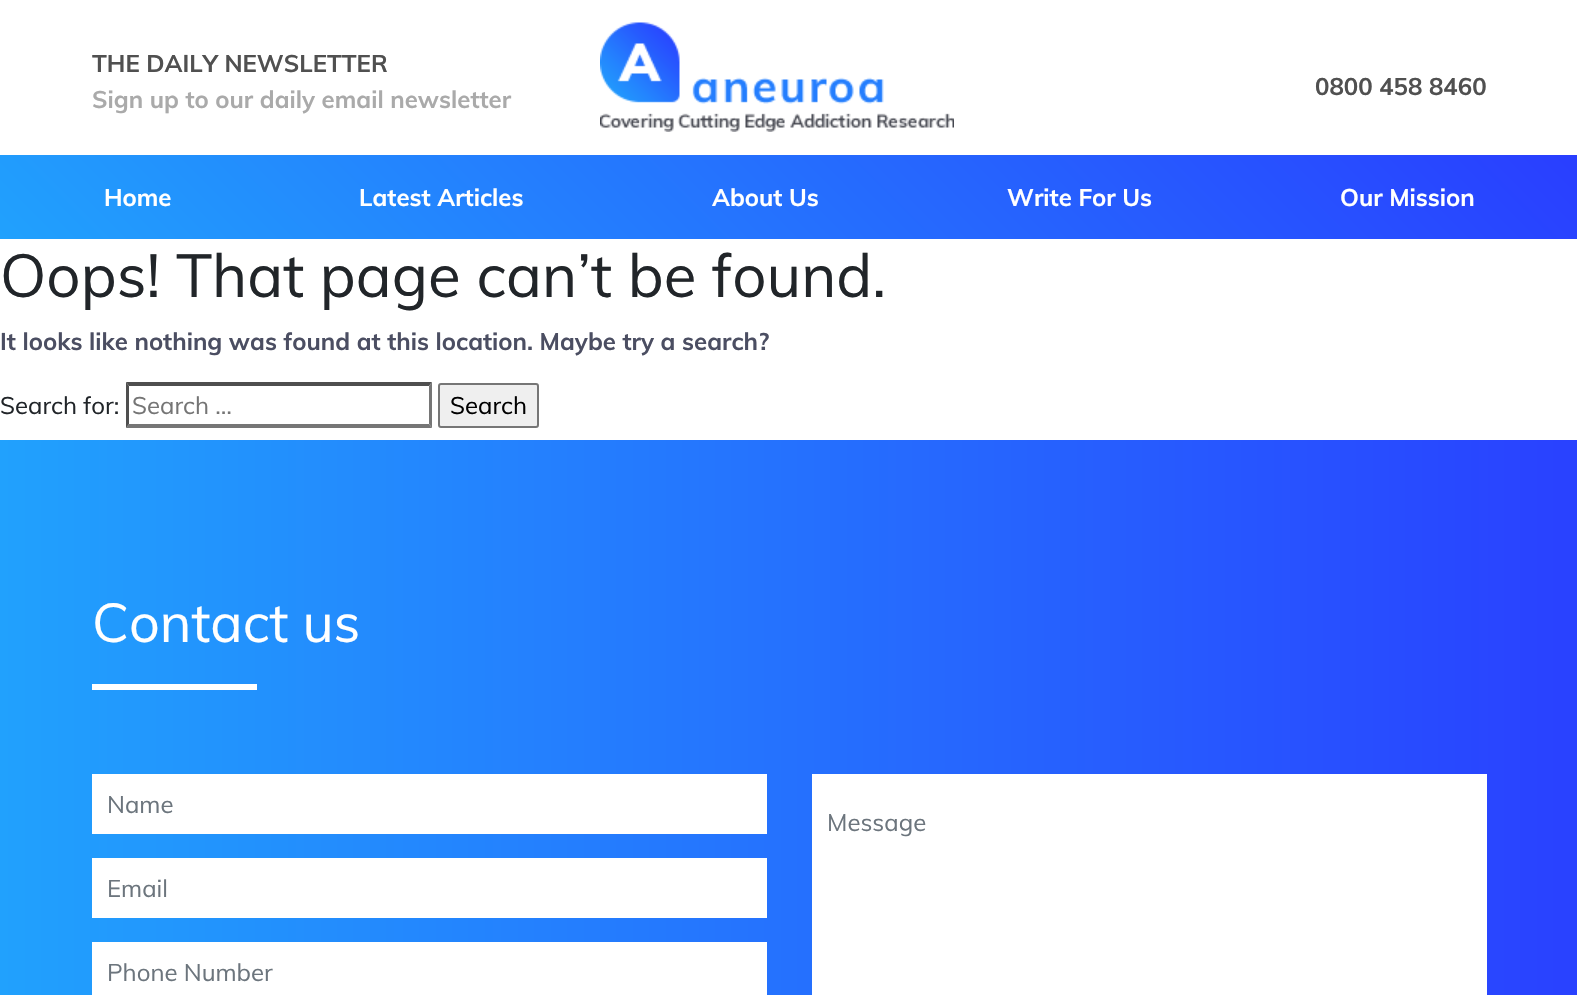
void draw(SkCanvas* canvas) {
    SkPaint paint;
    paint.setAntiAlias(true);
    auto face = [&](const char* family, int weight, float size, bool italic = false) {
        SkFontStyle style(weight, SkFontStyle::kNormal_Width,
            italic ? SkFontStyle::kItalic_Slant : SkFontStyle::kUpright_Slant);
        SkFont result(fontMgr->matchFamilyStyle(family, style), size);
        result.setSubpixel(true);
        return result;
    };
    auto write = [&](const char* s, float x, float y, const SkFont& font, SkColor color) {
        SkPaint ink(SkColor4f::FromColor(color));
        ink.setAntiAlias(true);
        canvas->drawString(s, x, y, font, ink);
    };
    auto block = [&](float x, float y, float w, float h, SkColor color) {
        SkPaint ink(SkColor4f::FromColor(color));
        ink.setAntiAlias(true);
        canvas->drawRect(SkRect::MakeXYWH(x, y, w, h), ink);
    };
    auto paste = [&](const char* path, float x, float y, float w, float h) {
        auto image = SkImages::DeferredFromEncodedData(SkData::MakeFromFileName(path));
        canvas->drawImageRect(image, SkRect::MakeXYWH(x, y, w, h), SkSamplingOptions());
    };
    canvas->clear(SK_ColorWHITE);
    auto kFont1 = face("Muli", 700, 24);
    write("THE DAILY NEWSLETTER", 92, 72, kFont1, SkColorSetRGB(80, 80, 80));
    write("Sign up to our daily email newsletter", 92, 108, kFont1, SkColorSetRGB(170, 170, 170));
    paste("pic1.png", 600, 22, 354, 110);
    write("0800 458 8460", 1315, 95, kFont1, SkColorSetRGB(80, 80, 80));
    {
        const SkColor colors[] = {SkColorSetRGB(33, 161, 253), SkColorSetRGB(41, 62, 255)};
        const float stops[] = {0, 1};
        const SkPoint ends[] = {{374, 612}, {1205, -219}};
        paint.setShader(SkGradientShader::MakeLinear(ends, colors, stops, 2, SkTileMode::kClamp));
        paint.setAlpha(255);
    }
    canvas->drawRect(SkRect::MakeXYWH(0, 155, 1577, 84), paint);
    write("Home", 104, 206, kFont1, SK_ColorWHITE);
    write("Latest Articles", 359, 206, kFont1, SK_ColorWHITE);
    write("About Us", 712, 206, kFont1, SK_ColorWHITE);
    write("Write For Us", 1007, 206, kFont1, SK_ColorWHITE);
    write("Our Mission", 1340, 206, kFont1, SK_ColorWHITE);
    auto kFont2 = face("Muli", 400, 60);
    write("Oops! That page can’t be found.", 0, 297, kFont2, SkColorSetRGB(33, 37, 41));
    write("It looks like nothing was found at this location. Maybe try a search?", 0, 350, kFont1, SkColorSetRGB(75, 78, 98));
    auto kFont3 = face("Muli", 400, 24);
    write("Search for:", 0, 414, kFont3, SkColorSetRGB(33, 37, 41));
    paint.setShader(nullptr);
    paint.setColor(SkColorSetRGB(79, 79, 79));
    canvas->drawPath(SkPathBuilder().moveTo(126, 382).lineTo(432, 382).lineTo(429, 386).lineTo(129, 386).close().detach(), paint);
    paint.setColor(SkColorSetRGB(118, 118, 118));
    canvas->drawPath(SkPathBuilder().moveTo(432, 382).lineTo(432, 428).lineTo(429, 424).lineTo(429, 386).close().detach(), paint);
    canvas->drawPath(SkPathBuilder().moveTo(432, 428).lineTo(126, 428).lineTo(129, 424).lineTo(429, 424).close().detach(), paint);
    paint.setColor(SkColorSetRGB(79, 79, 79));
    canvas->drawPath(SkPathBuilder().moveTo(126, 428).lineTo(126, 382).lineTo(129, 386).lineTo(129, 424).close().detach(), paint);
    write("Search …", 132, 414, kFont3, SkColorSetRGB(117, 117, 117));
    paint.setColor(SkColorSetRGB(239, 239, 239));
    canvas->drawRoundRect(SkRect::MakeXYWH(439, 384, 99, 43), 2, 2, paint);
    paint.setStyle(SkPaint::kStroke_Style);
    paint.setStrokeWidth(2);
    paint.setColor(SkColorSetRGB(118, 118, 118));
    canvas->drawRoundRect(SkRect::MakeXYWH(439, 384, 99, 43), 2, 2, paint);
    write("Search", 450, 414, kFont3, SK_ColorBLACK);
    paint.setStyle(SkPaint::kFill_Style);
    {
        const SkColor colors[] = {SkColorSetRGB(41, 65, 255), SkColorSetRGB(33, 161, 253)};
        const float stops[] = {0, 1};
        const SkPoint ends[] = {{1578, 917}, {0, 917}};
        paint.setShader(SkGradientShader::MakeLinear(ends, colors, stops, 2, SkTileMode::kClamp));
        paint.setAlpha(255);
    }
    canvas->drawRect(SkRect::MakeXYWH(0, 440, 1577, 555), paint);
    auto kFont4 = face("Muli", 400, 54);
    write("Contact us", 92, 642, kFont4, SK_ColorWHITE);
    block(92, 684, 165, 6, SK_ColorWHITE);
    block(92, 774, 675, 60, SK_ColorWHITE);
    write("Name", 107, 813, kFont3, SkColorSetRGB(108, 117, 125));
    block(92, 858, 675, 60, SK_ColorWHITE);
    write("Email", 107, 897, kFont3, SkColorSetRGB(108, 117, 125));
    block(92, 942, 675, 53, SK_ColorWHITE);
    write("Phone Number", 107, 981, kFont3, SkColorSetRGB(108, 117, 125));
    block(812, 774, 675, 221, SK_ColorWHITE);
    write("Message", 827, 831, kFont3, SkColorSetRGB(108, 117, 125));
}
